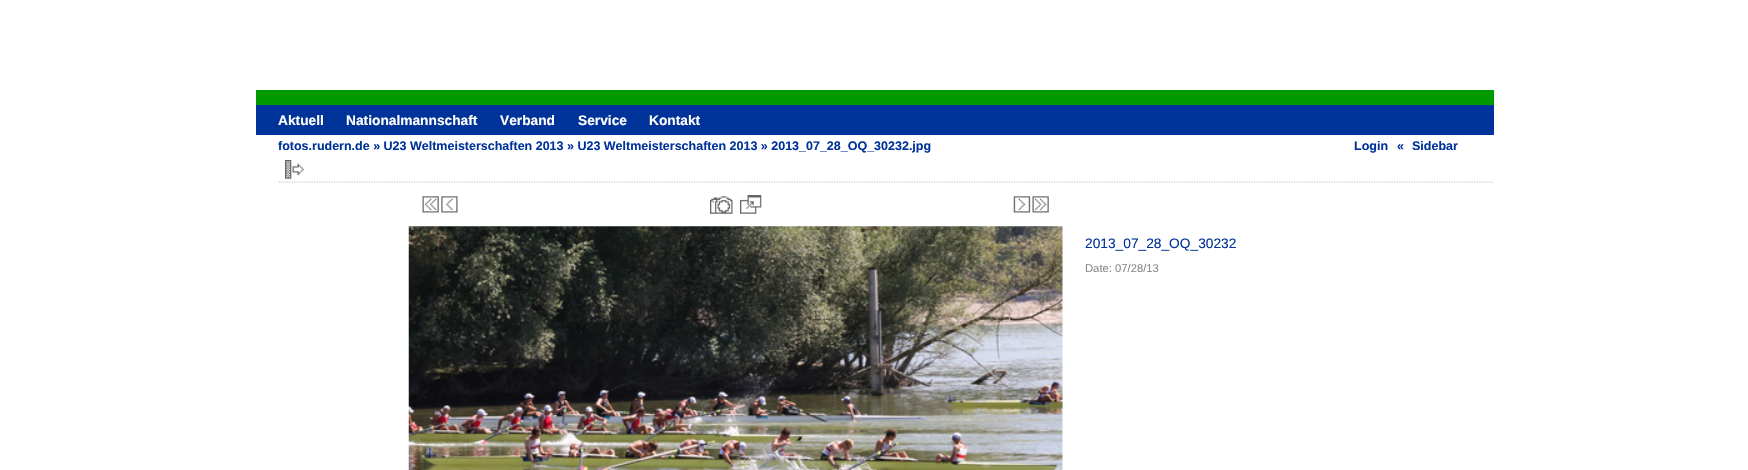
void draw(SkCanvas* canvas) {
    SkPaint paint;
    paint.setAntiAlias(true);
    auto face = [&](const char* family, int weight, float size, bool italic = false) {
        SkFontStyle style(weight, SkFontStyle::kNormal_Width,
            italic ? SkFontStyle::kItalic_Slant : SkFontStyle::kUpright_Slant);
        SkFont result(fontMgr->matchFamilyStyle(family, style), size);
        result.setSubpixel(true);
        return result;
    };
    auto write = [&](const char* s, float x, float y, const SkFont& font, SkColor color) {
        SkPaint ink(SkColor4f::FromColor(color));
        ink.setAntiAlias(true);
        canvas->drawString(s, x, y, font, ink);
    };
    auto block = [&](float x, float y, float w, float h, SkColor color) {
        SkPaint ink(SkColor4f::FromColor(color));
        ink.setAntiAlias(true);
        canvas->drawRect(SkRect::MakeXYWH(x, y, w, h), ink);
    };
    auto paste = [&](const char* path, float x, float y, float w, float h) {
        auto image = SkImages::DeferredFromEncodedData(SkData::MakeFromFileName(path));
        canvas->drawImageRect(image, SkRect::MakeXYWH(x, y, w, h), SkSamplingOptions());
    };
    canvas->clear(SK_ColorWHITE);
    block(256, 105, 1238, 30, SkColorSetRGB(0, 51, 153));
    block(256, 90, 1238, 15, SkColorSetRGB(0, 153, 0));
    auto kFont1 = face("Liberation Sans", 700, 13.75f);
    write("Aktuell", 278, 125, kFont1, SK_ColorWHITE);
    write("Nationalmannschaft", 346, 125, kFont1, SK_ColorWHITE);
    write("Verband", 500, 125, kFont1, SK_ColorWHITE);
    write("Service", 578, 125, kFont1, SK_ColorWHITE);
    write("Kontakt", 649, 125, kFont1, SK_ColorWHITE);
    auto kFont2 = face("Liberation Sans", 700, 12.5f);
    write("fotos.rudern.de » U23 Weltmeisterschaften 2013 » U23 Weltmeisterschaften 2013 » 2013_07_28_OQ_30232.jpg", 278, 150, kFont2, SkColorSetRGB(0, 51, 153));
    write("Login", 1354, 150, kFont2, SkColorSetRGB(0, 51, 153));
    write("«", 1397, 150, kFont2, SkColorSetRGB(0, 51, 153));
    write("Sidebar", 1412, 150, kFont2, SkColorSetRGB(0, 51, 153));
    paint.setStyle(SkPaint::kStroke_Style);
    paint.setStrokeWidth(1.2f);
    paint.setColor(SkColorSetRGB(192, 192, 192));
    paint.setPathEffect(SkDashPathEffect::Make({{1.25f, 1.25f}}, 0));
    canvas->drawPath(SkPathBuilder().moveTo(279, 182).lineTo(1494, 182).detach(), paint);
    paint.setPathEffect(nullptr);
    paste("pic1.png", 285, 160, 19, 19);
    paste("pic2.png", 422, 196, 17, 17);
    paste("pic3.png", 441, 196, 17, 17);
    paste("pic4.png", 710, 196, 23, 18);
    paste("pic5.png", 740, 195, 22, 19);
    paste("pic6.png", 1013, 196, 18, 17);
    paste("pic7.png", 1032, 196, 17, 17);
    paste("pic8.png", 408, 226, 655, 244);
    auto kFont3 = face("Liberation Sans", 400, 13.75f);
    write("2013_07_28_OQ_30232", 1085, 248, kFont3, SkColorSetRGB(0, 51, 153));
    auto kFont4 = face("Liberation Sans", 400, 11.25f);
    write("Date: 07/28/13", 1085, 272, kFont4, SkColorSetRGB(136, 136, 136));
}
